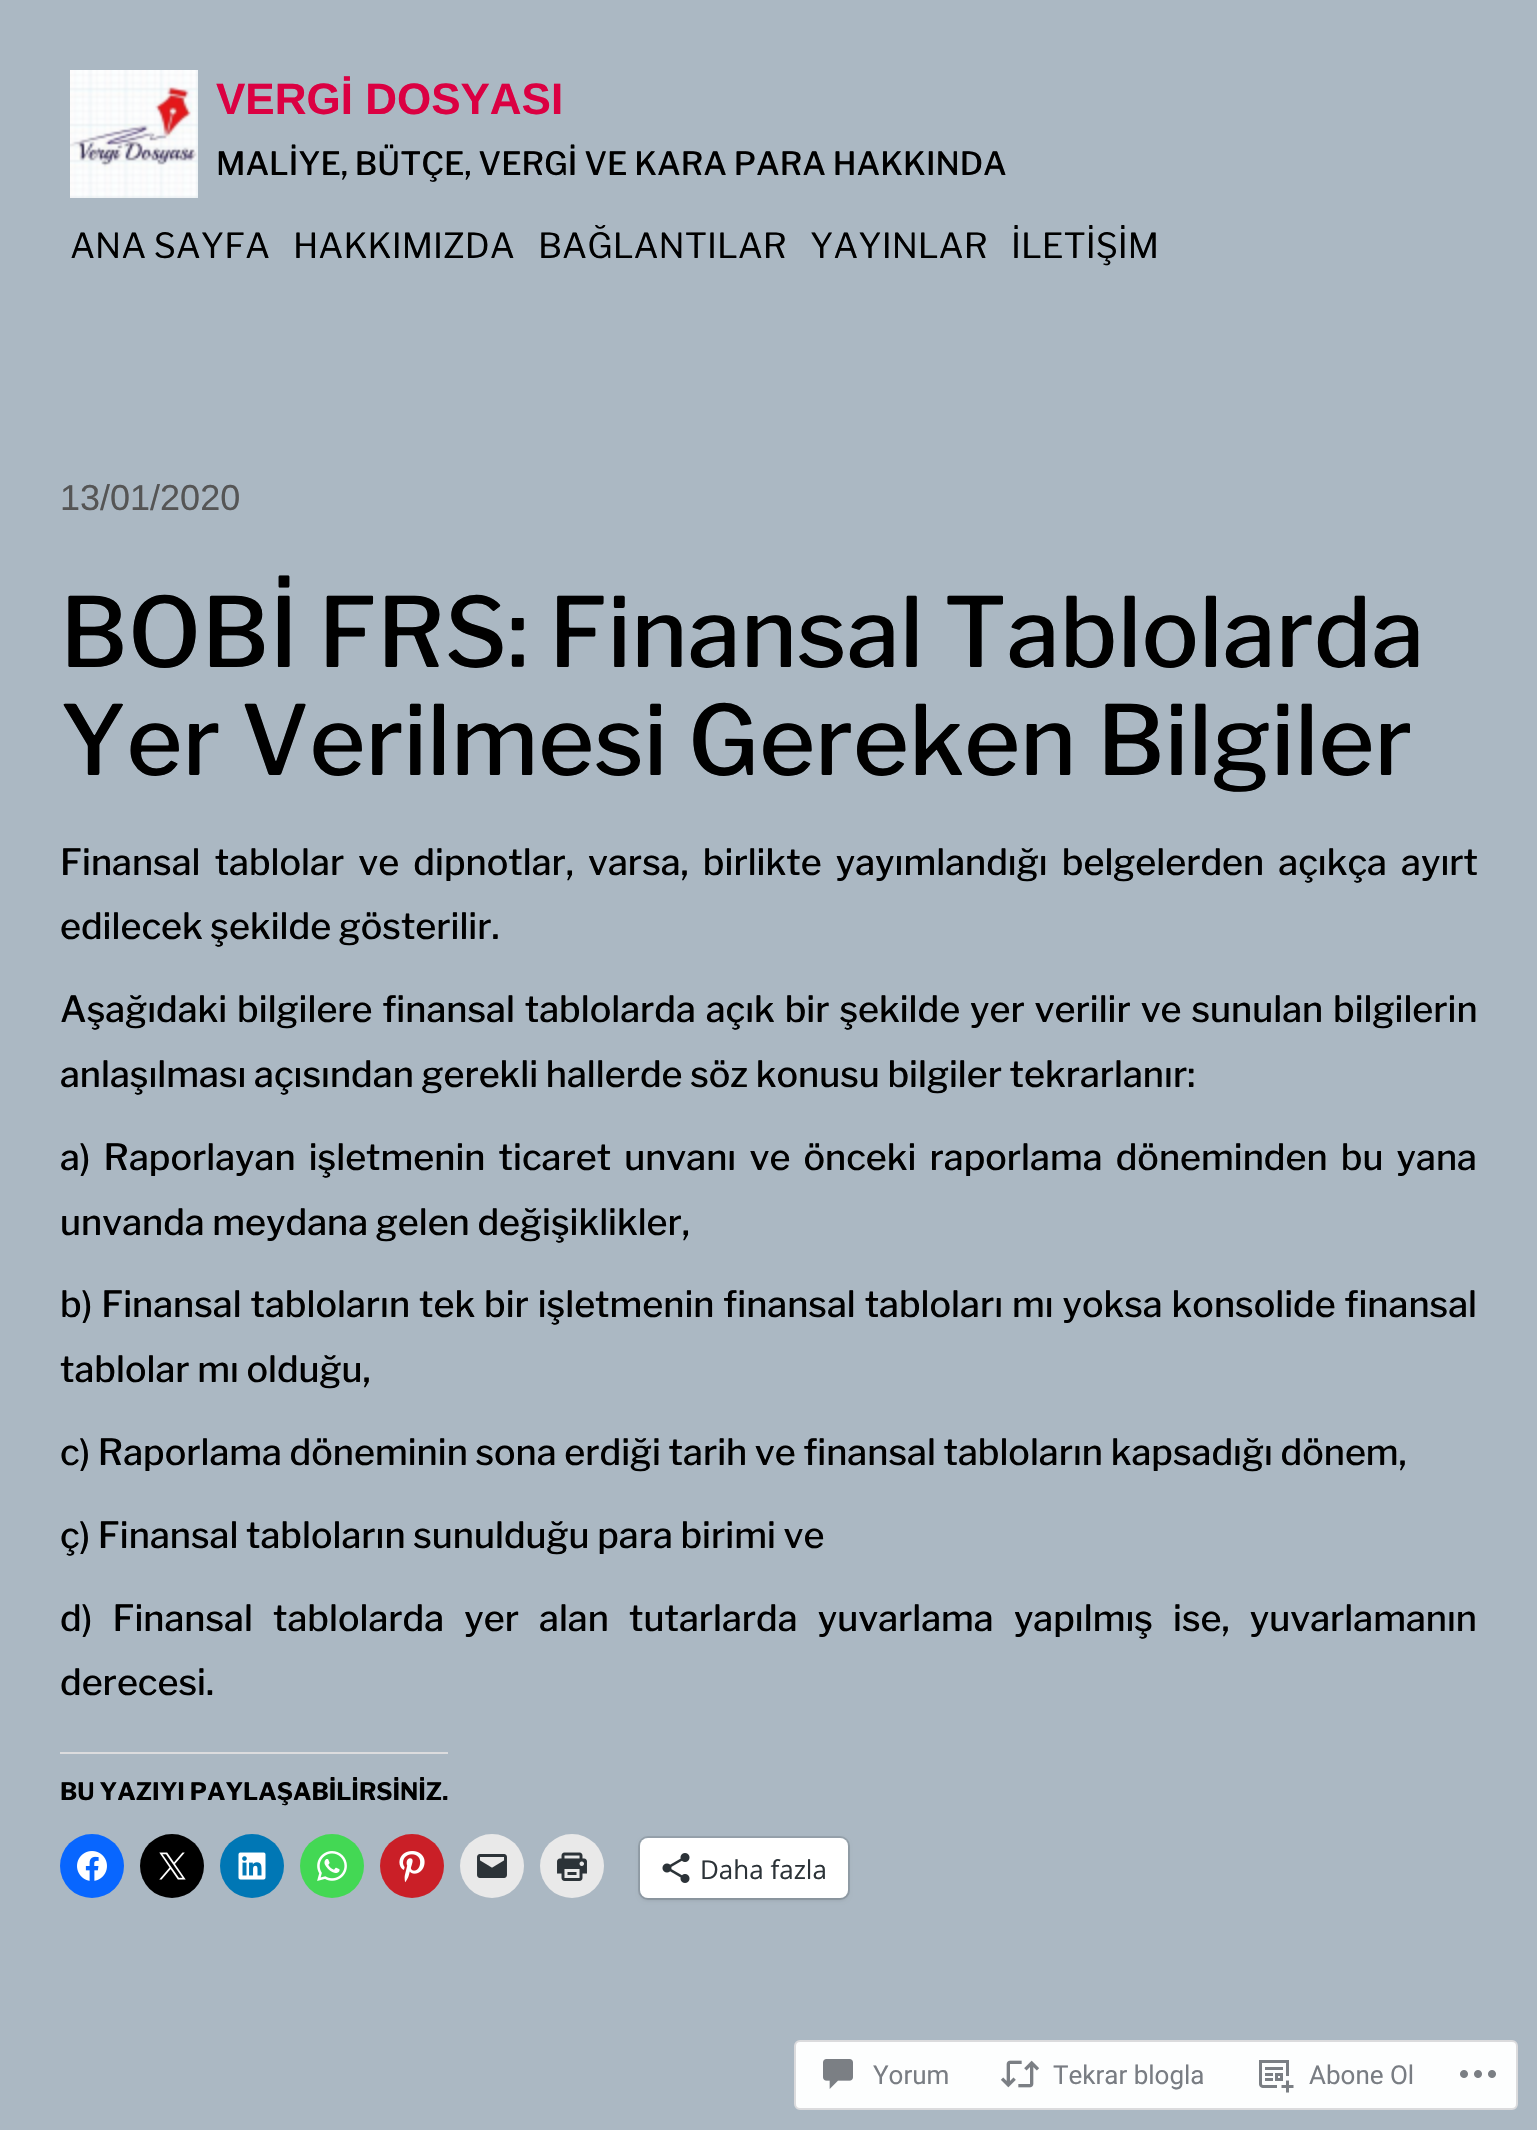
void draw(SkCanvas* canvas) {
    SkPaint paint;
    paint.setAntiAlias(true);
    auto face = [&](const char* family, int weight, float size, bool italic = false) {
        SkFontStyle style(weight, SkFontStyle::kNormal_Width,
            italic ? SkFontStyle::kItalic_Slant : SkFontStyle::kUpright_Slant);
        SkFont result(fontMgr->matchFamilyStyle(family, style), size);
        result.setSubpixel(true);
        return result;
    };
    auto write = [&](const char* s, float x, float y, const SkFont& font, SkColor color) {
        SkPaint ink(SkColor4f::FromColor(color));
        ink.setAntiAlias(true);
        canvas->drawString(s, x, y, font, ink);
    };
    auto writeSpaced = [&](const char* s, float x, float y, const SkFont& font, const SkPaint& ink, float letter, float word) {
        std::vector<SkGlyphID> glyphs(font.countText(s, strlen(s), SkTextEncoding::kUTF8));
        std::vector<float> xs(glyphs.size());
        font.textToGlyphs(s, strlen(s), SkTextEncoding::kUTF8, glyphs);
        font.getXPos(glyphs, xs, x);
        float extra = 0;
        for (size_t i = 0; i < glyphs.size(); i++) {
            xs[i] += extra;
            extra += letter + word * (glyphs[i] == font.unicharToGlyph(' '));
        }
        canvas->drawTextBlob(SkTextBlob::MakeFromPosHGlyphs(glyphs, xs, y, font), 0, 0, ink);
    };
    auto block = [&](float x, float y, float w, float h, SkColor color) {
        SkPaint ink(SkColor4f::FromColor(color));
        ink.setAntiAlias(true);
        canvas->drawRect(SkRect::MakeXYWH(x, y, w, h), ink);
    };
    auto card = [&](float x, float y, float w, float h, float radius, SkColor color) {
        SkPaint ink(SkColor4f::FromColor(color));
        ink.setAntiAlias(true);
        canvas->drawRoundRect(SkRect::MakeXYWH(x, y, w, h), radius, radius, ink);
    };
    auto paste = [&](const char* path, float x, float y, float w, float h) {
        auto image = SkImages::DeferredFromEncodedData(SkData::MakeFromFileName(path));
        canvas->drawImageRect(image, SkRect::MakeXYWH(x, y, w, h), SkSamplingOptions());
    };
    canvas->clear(SkColorSetRGB(171, 184, 195));
    paste("pic1.png", 70, 70, 128, 128);
    auto kFont1 = face("Liberation Sans", 700, 44);
    write("VERGİ DOSYASI", 216, 114, kFont1, SkColorSetRGB(219, 0, 66));
    auto kFont2 = face("Libre Franklin", 500, 32);
    write("MALİYE, BÜTÇE, VERGİ VE KARA PARA HAKKINDA", 216, 175, kFont2, SK_ColorBLACK);
    auto kFont3 = face("Libre Franklin", 400, 34.5f);
    write("ANA SAYFA", 70, 258, kFont3, SK_ColorBLACK);
    write("HAKKIMIZDA", 293, 258, kFont3, SK_ColorBLACK);
    write("BAĞLANTILAR", 538, 258, kFont3, SK_ColorBLACK);
    write("YAYINLAR", 810, 258, kFont3, SK_ColorBLACK);
    write("İLETİŞİM", 1011, 258, kFont3, SK_ColorBLACK);
    auto kFont4 = face("Liberation Sans", 400, 36);
    write("13/01/2020", 60, 510, kFont4, SkColorSetRGB(85, 85, 85));
    auto kFont5 = face("Libre Franklin", 500, 96);
    write("BOBİ FRS: Finansal Tablolarda", 60, 667, kFont5, SK_ColorBLACK);
    write("Yer Verilmesi Gereken Bilgiler", 60, 775, kFont5, SK_ColorBLACK);
    auto kFont6 = face("Libre Franklin", 500, 36);
    paint.setColor(SK_ColorBLACK);
    writeSpaced("Finansal tablolar ve dipnotlar, varsa, birlikte yayımlandığı belgelerden açıkça ayırt", 60, 875, kFont6, paint, 0, 6.5f);
    write("edilecek şekilde gösterilir.", 60, 939, kFont6, SK_ColorBLACK);
    writeSpaced("Aşağıdaki bilgilere finansal tablolarda açık bir şekilde yer verilir ve sunulan bilgilerin", 60, 1022, kFont6, paint, 0, 2.25f);
    write("anlaşılması açısından gerekli hallerde söz konusu bilgiler tekrarlanır:", 60, 1087, kFont6, SK_ColorBLACK);
    writeSpaced("a) Raporlayan işletmenin ticaret unvanı ve önceki raporlama döneminden bu yana", 60, 1170, kFont6, paint, 0, 5.5f);
    write("unvanda meydana gelen değişiklikler,", 60, 1235, kFont6, SK_ColorBLACK);
    writeSpaced("b) Finansal tabloların tek bir işletmenin finansal tabloları mı yoksa konsolide finansal", 60, 1317, kFont6, paint, 0, 1.25f);
    write("tablolar mı olduğu,", 60, 1382, kFont6, SK_ColorBLACK);
    write("c) Raporlama döneminin sona erdiği tarih ve finansal tabloların kapsadığı dönem,", 60, 1465, kFont6, SK_ColorBLACK);
    write("ç) Finansal tabloların sunulduğu para birimi ve", 60, 1548, kFont6, SK_ColorBLACK);
    writeSpaced("d) Finansal tablolarda yer alan tutarlarda yuvarlama yapılmış ise, yuvarlamanın", 60, 1631, kFont6, paint, 0, 12.5f);
    write("derecesi.", 60, 1695, kFont6, SK_ColorBLACK);
    block(60, 1752, 388, 2, SkColorSetRGB(220, 220, 222));
    auto kFont7 = face("Libre Franklin", 700, 24);
    write("BU YAZIYI PAYLAŞABİLİRSİNİZ.", 60, 1800, kFont7, SK_ColorBLACK);
    paint.setColor(SkColorSetRGB(8, 102, 255));
    canvas->drawCircle(92, 1866, 32, paint);
    paste("pic2.png", 77, 1851, 30, 30);
    paint.setColor(SK_ColorBLACK);
    canvas->drawCircle(172, 1866, 32, paint);
    paste("pic3.png", 159, 1852, 27, 28);
    paint.setColor(SkColorSetRGB(0, 119, 181));
    canvas->drawCircle(252, 1866, 32, paint);
    paste("pic4.png", 238, 1852, 28, 28);
    paint.setColor(SkColorSetRGB(67, 216, 84));
    canvas->drawCircle(332, 1866, 32, paint);
    paste("pic5.png", 317, 1851, 30, 30);
    paint.setColor(SkColorSetRGB(202, 31, 39));
    canvas->drawCircle(412, 1866, 32, paint);
    paste("pic6.png", 399, 1851, 26, 32);
    paint.setColor(SkColorSetRGB(233, 233, 233));
    canvas->drawCircle(492, 1866, 32, paint);
    paste("pic7.png", 477, 1854, 30, 24);
    canvas->drawCircle(572, 1866, 32, paint);
    paste("pic8.png", 557, 1852, 30, 29);
    paint.setStyle(SkPaint::kStroke_Style);
    paint.setStrokeWidth(2);
    paint.setColor(SkColorSetRGB(150, 162, 172));
    canvas->drawRoundRect(SkRect::MakeXYWH(639, 1837, 210, 62), 9, 9, paint);
    paint.setStyle(SkPaint::kFill_Style);
    paint.setColor(SkColorSetARGB(31, 0, 0, 0));
    paint.setMaskFilter(SkMaskFilter::MakeBlur(kNormal_SkBlurStyle, 2));
    canvas->drawRoundRect(SkRect::MakeXYWH(640, 1840, 208, 60), 8, 8, paint);
    paint.setMaskFilter(nullptr);
    card(640, 1838, 208, 60, 8, SK_ColorWHITE);
    paste("pic9.png", 662, 1853, 28, 30);
    auto kFont8 = face("Open Sans", 400, 26);
    write("Daha fazla", 700, 1879, kFont8, SkColorSetRGB(44, 51, 56));
    paint.setColor(SkColorSetRGB(253, 254, 254));
    canvas->drawRoundRect(SkRect::MakeXYWH(795, 2041, 722, 68), 5, 5, paint);
    paint.setStyle(SkPaint::kStroke_Style);
    paint.setColor(SkColorSetRGB(219, 219, 221));
    canvas->drawRoundRect(SkRect::MakeXYWH(795, 2041, 722, 68), 5, 5, paint);
    paste("pic10.png", 823, 2059, 30, 30);
    auto kFont9 = face("Roboto", 400, 26);
    write("Yorum", 873, 2084, kFont9, SkColorSetRGB(121, 125, 131));
    paste("pic11.png", 1000, 2060, 40, 28);
    write("Tekrar blogla", 1053, 2084, kFont9, SkColorSetRGB(121, 125, 131));
    paste("pic12.png", 1259, 2060, 35, 33);
    write("Abone Ol", 1309, 2084, kFont9, SkColorSetRGB(121, 125, 131));
    paste("pic13.png", 1460, 2070, 36, 8);
}
